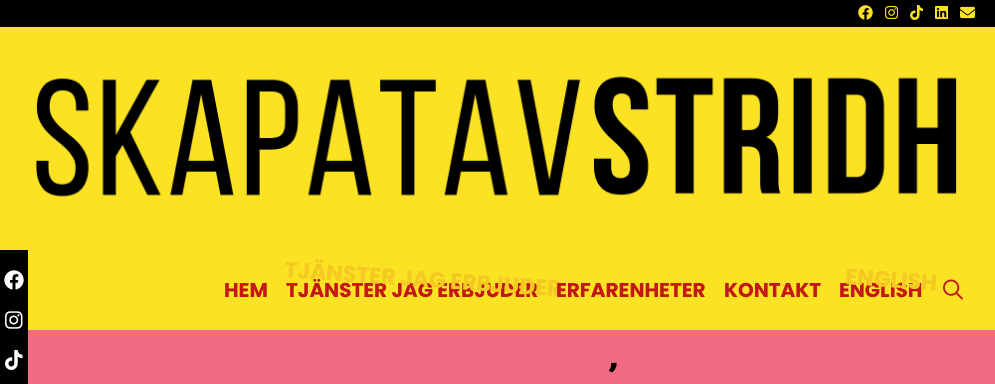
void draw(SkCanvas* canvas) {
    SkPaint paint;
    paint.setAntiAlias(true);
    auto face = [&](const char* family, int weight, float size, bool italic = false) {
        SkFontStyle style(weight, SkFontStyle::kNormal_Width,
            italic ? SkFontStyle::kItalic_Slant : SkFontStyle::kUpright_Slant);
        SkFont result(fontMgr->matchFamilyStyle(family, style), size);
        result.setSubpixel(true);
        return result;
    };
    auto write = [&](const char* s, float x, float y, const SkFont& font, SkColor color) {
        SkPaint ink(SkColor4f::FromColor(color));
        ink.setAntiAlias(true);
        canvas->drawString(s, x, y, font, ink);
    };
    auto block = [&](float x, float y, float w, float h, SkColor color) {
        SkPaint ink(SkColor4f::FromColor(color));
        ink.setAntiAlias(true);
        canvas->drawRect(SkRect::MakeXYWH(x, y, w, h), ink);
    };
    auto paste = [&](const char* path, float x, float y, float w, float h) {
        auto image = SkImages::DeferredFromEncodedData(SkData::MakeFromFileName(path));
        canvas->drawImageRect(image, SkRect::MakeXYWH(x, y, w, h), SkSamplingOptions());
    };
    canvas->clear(SkColorSetRGB(243, 106, 131));
    block(0, 0, 995, 27, SK_ColorBLACK);
    paste("pic1.png", 858, 5, 15, 15);
    paste("pic2.png", 885, 6, 13, 13);
    paste("pic3.png", 910, 5, 13, 15);
    paste("pic4.png", 935, 5, 13, 15);
    paste("pic5.png", 960, 6, 15, 13);
    block(0, 27, 995, 303, SkColorSetRGB(251, 226, 34));
    block(0, 250, 28, 134, SK_ColorBLACK);
    paste("pic6.png", 4, 270, 20, 20);
    paste("pic7.png", 5, 311, 18, 18);
    paste("pic8.png", 5, 350, 18, 20);
    paste("pic9.png", 35, 76, 922, 121);
    auto kFont1 = face("Poppins", 700, 20);
    write("HEM", 224, 297, kFont1, SkColorSetRGB(196, 23, 23));
    write("TJÄNSTER JAG ERBJUDER", 286, 297, kFont1, SkColorSetRGB(196, 23, 23));
    auto kFont2 = face("Poppins", 700, 22);
    canvas->save();
    canvas->rotate(4, 284, 277);
    write("TJÄNSTER JAG ERBJUDER", 284, 277, kFont2, SkColorSetRGB(244, 201, 33));
    canvas->restore();
    write("ERFARENHETER", 556, 297, kFont1, SkColorSetRGB(196, 23, 23));
    write("KONTAKT", 724, 297, kFont1, SkColorSetRGB(196, 23, 23));
    write("ENGLISH", 839, 297, kFont1, SkColorSetRGB(196, 23, 23));
    canvas->save();
    canvas->rotate(4, 845, 284);
    write("ENGLISH", 845, 284, kFont2, SkColorSetRGB(244, 201, 33));
    canvas->restore();
    paste("pic10.png", 943, 279, 20, 21);
    auto kFont3 = face("Josefin Sans", 600, 60);
    write("’", 607, 406, kFont3, SK_ColorBLACK);
}
